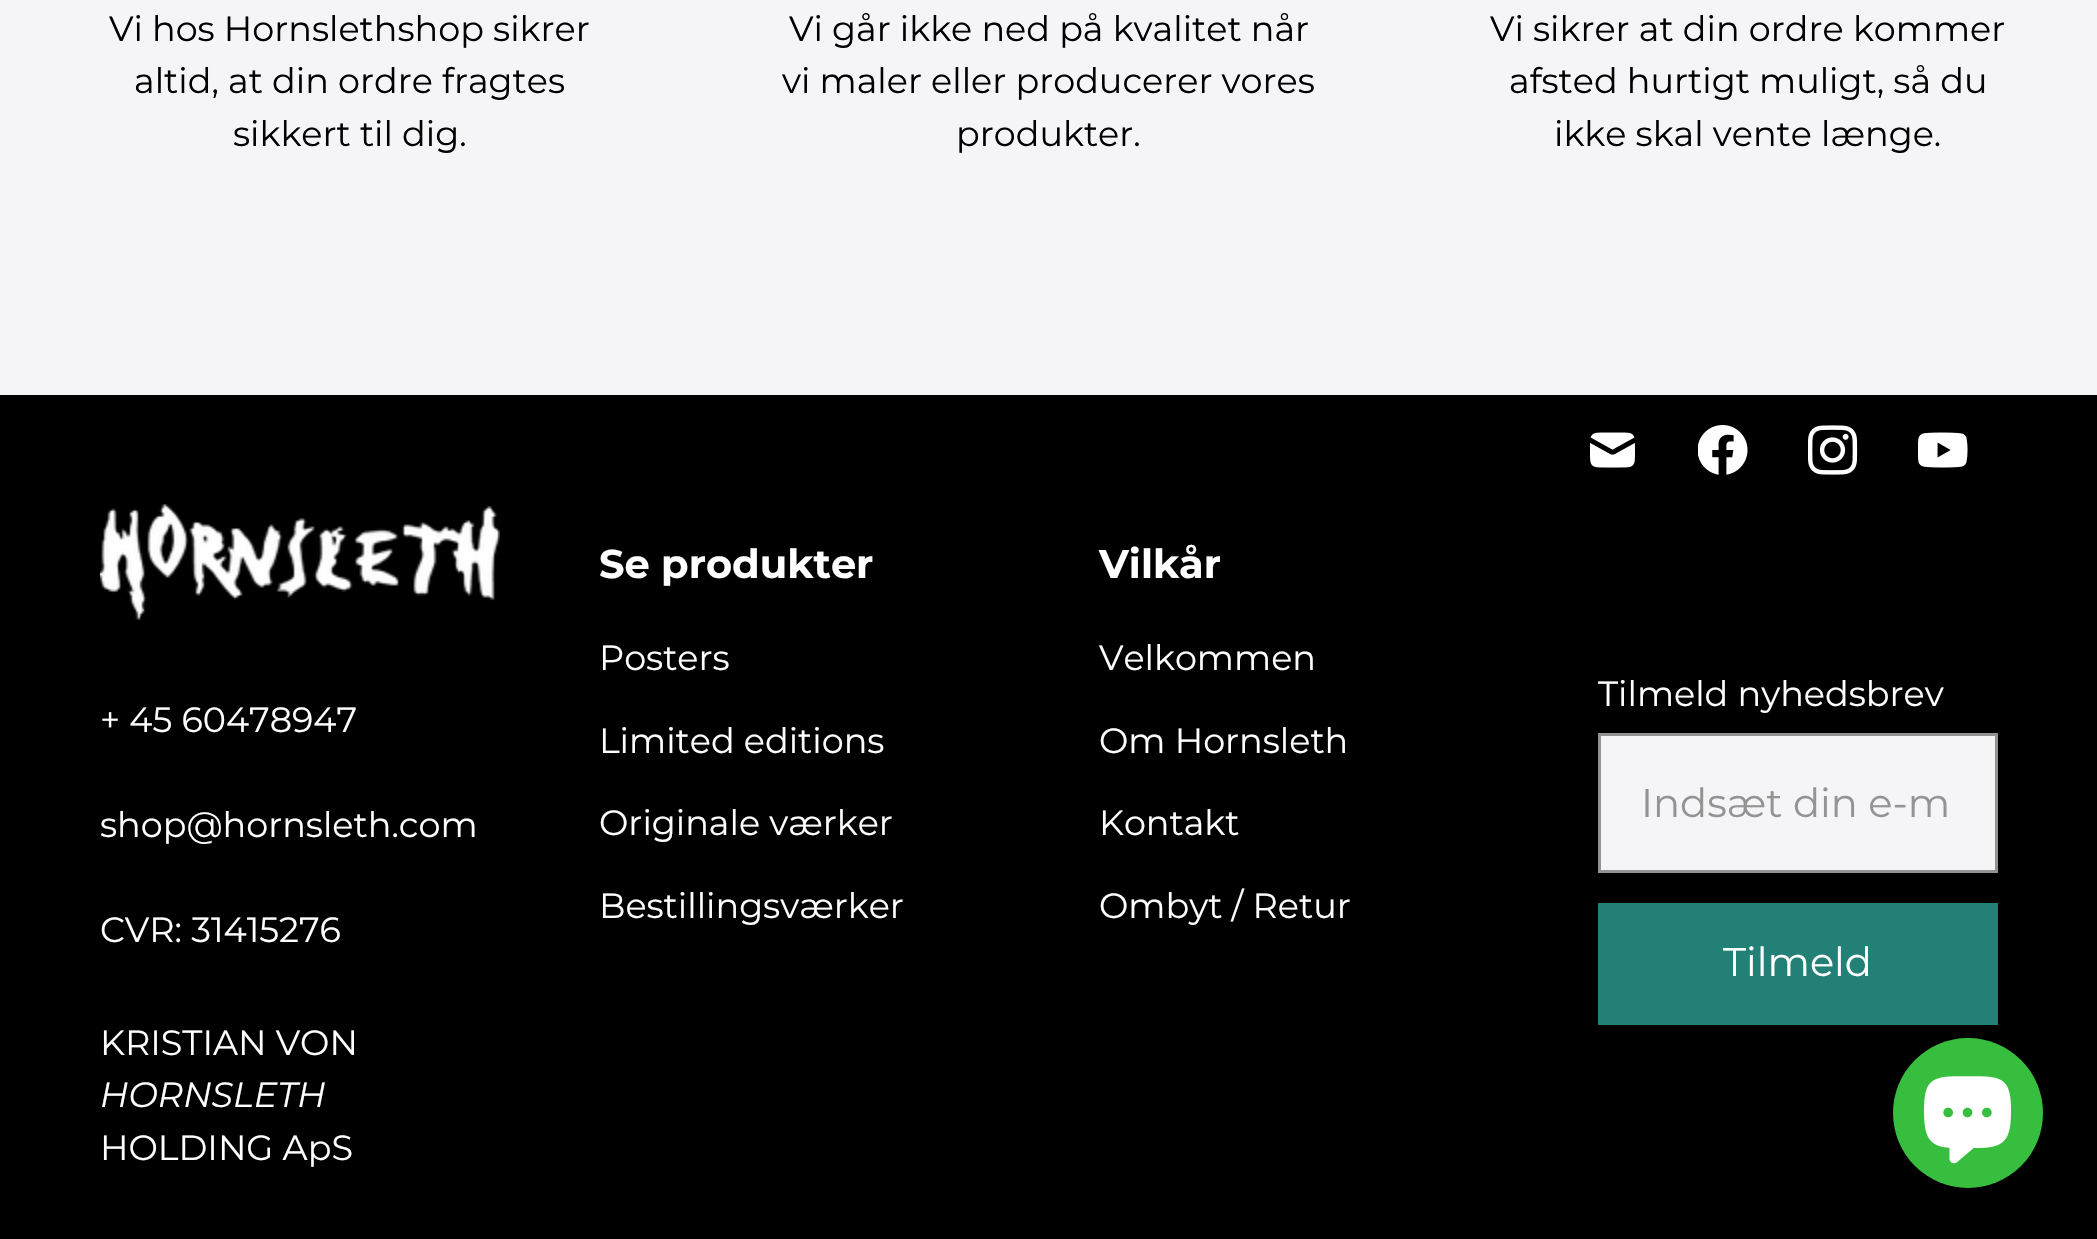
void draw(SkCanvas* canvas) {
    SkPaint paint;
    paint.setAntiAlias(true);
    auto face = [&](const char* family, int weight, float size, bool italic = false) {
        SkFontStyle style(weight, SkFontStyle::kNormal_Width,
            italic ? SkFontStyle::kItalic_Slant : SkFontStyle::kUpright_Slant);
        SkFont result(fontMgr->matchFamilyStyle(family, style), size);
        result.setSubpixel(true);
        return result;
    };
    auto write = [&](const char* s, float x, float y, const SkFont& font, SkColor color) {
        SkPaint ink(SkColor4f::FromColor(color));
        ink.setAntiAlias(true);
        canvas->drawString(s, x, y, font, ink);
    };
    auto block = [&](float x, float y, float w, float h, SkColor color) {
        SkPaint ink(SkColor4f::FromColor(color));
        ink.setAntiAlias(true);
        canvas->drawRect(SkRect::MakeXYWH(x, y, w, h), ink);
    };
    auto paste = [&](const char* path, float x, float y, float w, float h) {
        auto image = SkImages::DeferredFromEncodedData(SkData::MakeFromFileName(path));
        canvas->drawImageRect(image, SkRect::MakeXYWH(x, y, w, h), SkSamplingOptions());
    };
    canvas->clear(SkColorSetRGB(245, 245, 247));
    auto kFont1 = face("Montserrat", 400, 35);
    write("Vi hos Hornslethshop sikrer", 109, 41, kFont1, SK_ColorBLACK);
    write("altid, at din ordre fragtes", 134, 93, kFont1, SK_ColorBLACK);
    write("sikkert til dig.", 233, 146, kFont1, SK_ColorBLACK);
    write("Vi går ikke ned på kvalitet når", 789, 41, kFont1, SK_ColorBLACK);
    write("vi maler eller producerer vores", 782, 93, kFont1, SK_ColorBLACK);
    write("produkter.", 956, 146, kFont1, SK_ColorBLACK);
    write("Vi sikrer at din ordre kommer", 1490, 41, kFont1, SK_ColorBLACK);
    write("afsted hurtigt muligt, så du", 1509, 93, kFont1, SK_ColorBLACK);
    write("ikke skal vente længe.", 1554, 146, kFont1, SK_ColorBLACK);
    block(0, 395, 2097, 844, SK_ColorBLACK);
    paste("pic1.png", 1590, 432, 45, 36);
    paste("pic2.png", 1698, 425, 50, 50);
    paste("pic3.png", 1808, 425, 50, 50);
    paste("pic4.png", 1918, 432, 50, 36);
    paste("pic5.png", 100, 504, 400, 116);
    write("+ 45 60478947", 100, 732, kFont1, SK_ColorWHITE);
    write("shop@hornsleth.com", 100, 837, kFont1, SK_ColorWHITE);
    write("CVR: 31415276", 100, 942, kFont1, SK_ColorWHITE);
    write("KRISTIAN VON", 100, 1055, kFont1, SK_ColorWHITE);
    auto kFont2 = face("Montserrat", 400, 35, true);
    write("HORNSLETH", 100, 1107, kFont2, SK_ColorWHITE);
    write("HOLDING ApS", 100, 1160, kFont1, SK_ColorWHITE);
    auto kFont3 = face("Montserrat", 700, 40);
    write("Se produkter", 599, 578, kFont3, SK_ColorWHITE);
    write("Posters", 599, 670, kFont1, SK_ColorWHITE);
    write("Limited editions", 599, 753, kFont1, SK_ColorWHITE);
    write("Originale værker", 599, 835, kFont1, SK_ColorWHITE);
    write("Bestillingsværker", 599, 918, kFont1, SK_ColorWHITE);
    write("Vilkår", 1099, 578, kFont3, SK_ColorWHITE);
    write("Velkommen", 1099, 670, kFont1, SK_ColorWHITE);
    write("Om Hornsleth", 1099, 753, kFont1, SK_ColorWHITE);
    write("Kontakt", 1099, 835, kFont1, SK_ColorWHITE);
    write("Ombyt / Retur", 1099, 918, kFont1, SK_ColorWHITE);
    write("Tilmeld nyhedsbrev", 1598, 706, kFont1, SK_ColorWHITE);
    paint.setColor(SkColorSetRGB(245, 245, 247));
    canvas->drawRect(SkRect::MakeXYWH(1599.5f, 734.5f, 397, 137), paint);
    paint.setStyle(SkPaint::kStroke_Style);
    paint.setStrokeWidth(3);
    paint.setColor(SkColorSetRGB(147, 147, 148));
    canvas->drawRect(SkRect::MakeXYWH(1599.5f, 734.5f, 397, 137), paint);
    auto kFont4 = face("Montserrat", 400, 40);
    write("Indsæt din e-m", 1641, 817, kFont4, SkColorSetRGB(147, 147, 148));
    block(1598, 903, 400, 122, SkColorSetRGB(35, 128, 119));
    write("Tilmeld", 1723, 976, kFont4, SK_ColorWHITE);
    paint.setStyle(SkPaint::kFill_Style);
    paint.setColor(SkColorSetRGB(56, 190, 63));
    canvas->drawCircle(1968, 1113, 75, paint);
    paste("pic6.png", 1924, 1076, 87, 88);
}
